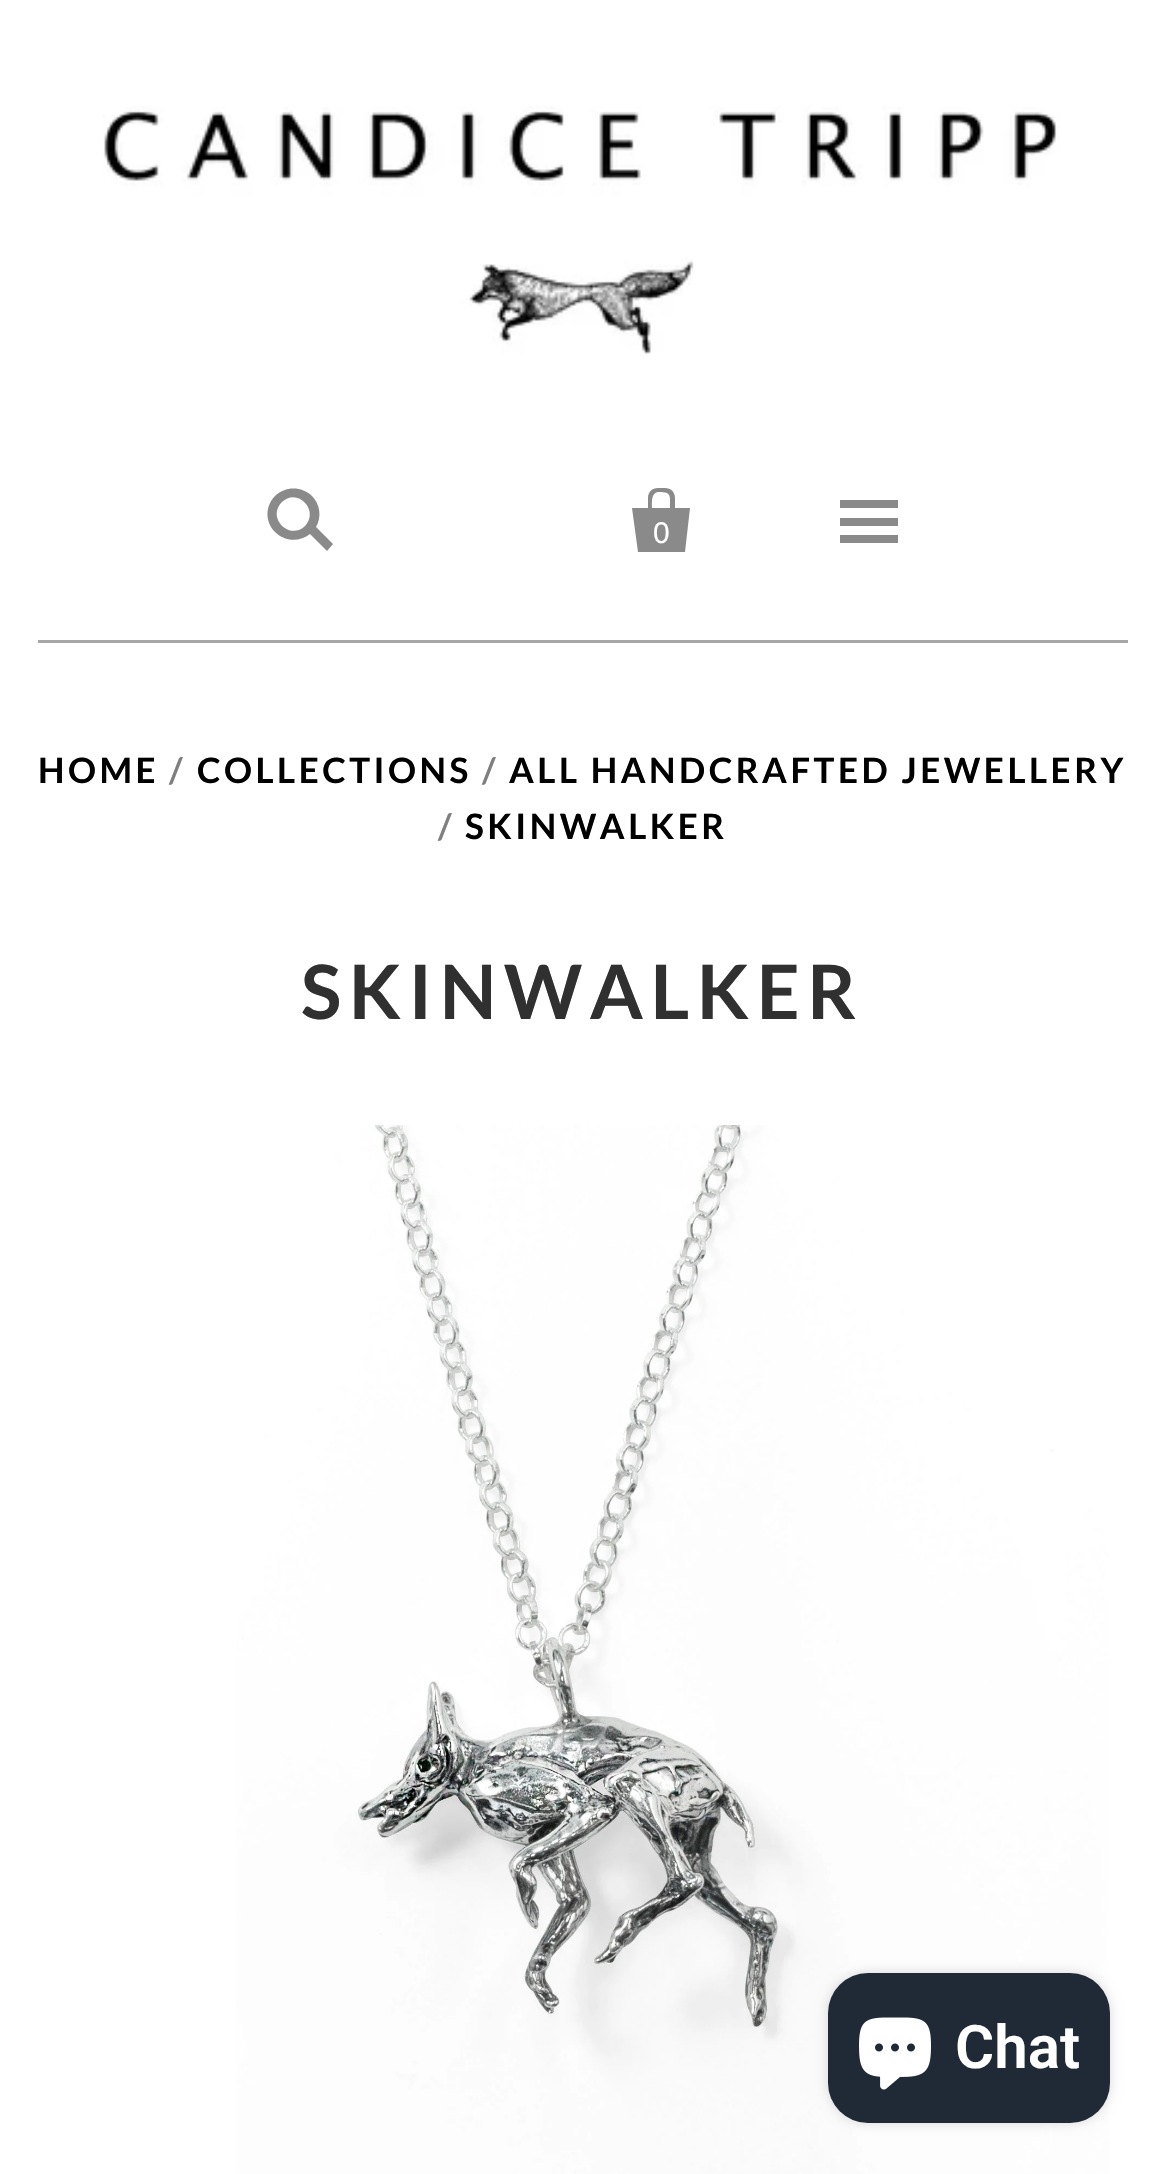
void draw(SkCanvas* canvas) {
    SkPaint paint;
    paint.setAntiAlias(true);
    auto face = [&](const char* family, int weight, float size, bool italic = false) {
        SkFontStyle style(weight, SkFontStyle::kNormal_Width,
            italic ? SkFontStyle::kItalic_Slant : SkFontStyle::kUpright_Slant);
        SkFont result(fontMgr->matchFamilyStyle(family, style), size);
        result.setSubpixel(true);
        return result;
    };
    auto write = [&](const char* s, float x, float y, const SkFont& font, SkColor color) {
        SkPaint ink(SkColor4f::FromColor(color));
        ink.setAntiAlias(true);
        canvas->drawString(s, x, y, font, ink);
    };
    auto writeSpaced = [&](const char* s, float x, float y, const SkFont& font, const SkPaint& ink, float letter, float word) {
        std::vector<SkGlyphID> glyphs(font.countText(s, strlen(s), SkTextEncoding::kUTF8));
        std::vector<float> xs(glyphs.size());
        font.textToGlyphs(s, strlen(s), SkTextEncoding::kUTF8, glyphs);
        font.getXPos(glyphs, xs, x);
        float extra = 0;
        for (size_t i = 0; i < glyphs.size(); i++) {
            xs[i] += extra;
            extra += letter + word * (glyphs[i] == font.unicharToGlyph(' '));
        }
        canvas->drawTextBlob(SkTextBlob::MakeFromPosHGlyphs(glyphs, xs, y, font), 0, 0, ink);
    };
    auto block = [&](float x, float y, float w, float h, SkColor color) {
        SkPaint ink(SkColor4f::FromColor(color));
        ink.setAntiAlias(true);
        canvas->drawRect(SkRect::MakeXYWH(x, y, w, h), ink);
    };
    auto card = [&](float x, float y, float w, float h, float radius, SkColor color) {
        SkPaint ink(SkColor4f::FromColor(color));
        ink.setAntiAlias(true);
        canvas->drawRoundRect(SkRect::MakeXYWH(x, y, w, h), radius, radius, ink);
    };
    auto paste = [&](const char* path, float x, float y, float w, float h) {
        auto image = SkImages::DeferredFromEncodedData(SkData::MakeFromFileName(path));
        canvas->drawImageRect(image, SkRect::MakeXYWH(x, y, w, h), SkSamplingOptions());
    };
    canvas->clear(SK_ColorWHITE);
    block(38, 640, 1090, 3, SkColorSetRGB(167, 167, 167));
    paste("pic1.png", 103, 106, 956, 249);
    paint.setColor(SkColorSetRGB(138, 138, 138));
    canvas->drawPath(SkPathBuilder().moveTo(316, 527).cubicTo(322, 517, 320, 504, 312, 496).cubicTo(302, 486, 285, 486, 275, 496).cubicTo(265, 506, 265, 522, 275, 532).cubicTo(285, 542, 300, 542, 310, 534).lineTo(327, 551).lineTo(333, 544).close().moveTo(305, 526).cubicTo(290, 541, 266, 518, 282, 502).cubicTo(297, 487, 320, 510, 305, 526).close().detach(), paint);
    canvas->drawPath(SkPathBuilder().moveTo(675, 508).lineTo(690, 508).lineTo(685, 552).lineTo(638, 552).lineTo(632, 508).lineTo(648, 508).lineTo(648, 498).cubicTo(648, 492, 652, 488, 658, 488).lineTo(665, 488).cubicTo(671, 488, 675, 492, 675, 498).close().moveTo(659, 492).cubicTo(651, 492, 652, 502, 652, 508).lineTo(670, 508).cubicTo(670, 496, 672, 492, 659, 492).close().detach(), paint);
    auto kFont1 = face("Liberation Sans", 400, 30);
    write("0", 653, 543, kFont1, SK_ColorWHITE);
    block(840, 518, 58, 8, SkColorSetRGB(138, 138, 138));
    block(840, 500, 58, 8, SkColorSetRGB(138, 138, 138));
    block(840, 535, 58, 8, SkColorSetRGB(138, 138, 138));
    auto kFont2 = face("Lato", 700, 35);
    paint.setColor(SK_ColorBLACK);
    writeSpaced("HOME", 38, 783, kFont2, paint, 3.5f, 0);
    paint.setColor(SkColorSetRGB(127, 127, 127));
    writeSpaced("/", 169, 783, kFont2, paint, 3.5f, 0);
    paint.setColor(SK_ColorBLACK);
    writeSpaced("COLLECTIONS", 197, 783, kFont2, paint, 3.5f, 0);
    paint.setColor(SkColorSetRGB(127, 127, 127));
    writeSpaced("/", 482, 783, kFont2, paint, 3.5f, 0);
    paint.setColor(SK_ColorBLACK);
    writeSpaced("ALL HANDCRAFTED JEWELLERY", 509, 783, kFont2, paint, 3.5f, 0);
    paint.setColor(SkColorSetRGB(127, 127, 127));
    writeSpaced("/", 438, 839, kFont2, paint, 3.5f, 0);
    paint.setColor(SK_ColorBLACK);
    writeSpaced("SKINWALKER", 465, 839, kFont2, paint, 3.5f, 0);
    auto kFont3 = face("Lato", 700, 75);
    paint.setColor(SkColorSetRGB(48, 48, 48));
    writeSpaced("SKINWALKER", 301, 1019, kFont3, paint, 7.5f, 0);
    paste("pic2.png", 236, 1125, 873, 1049);
    paint.setColor(SkColorSetARGB(38, 0, 0, 0));
    paint.setMaskFilter(SkMaskFilter::MakeBlur(kNormal_SkBlurStyle, 6));
    canvas->drawRoundRect(SkRect::MakeXYWH(828, 1973, 282, 150), 40, 40, paint);
    paint.setMaskFilter(nullptr);
    card(828, 1973, 282, 150, 40, SkColorSetRGB(32, 42, 54));
    paste("pic3.png", 859, 2017, 72, 73);
    auto kFont4 = face("Roboto", 600, 60);
    write("Chat", 955, 2068, kFont4, SK_ColorWHITE);
}
